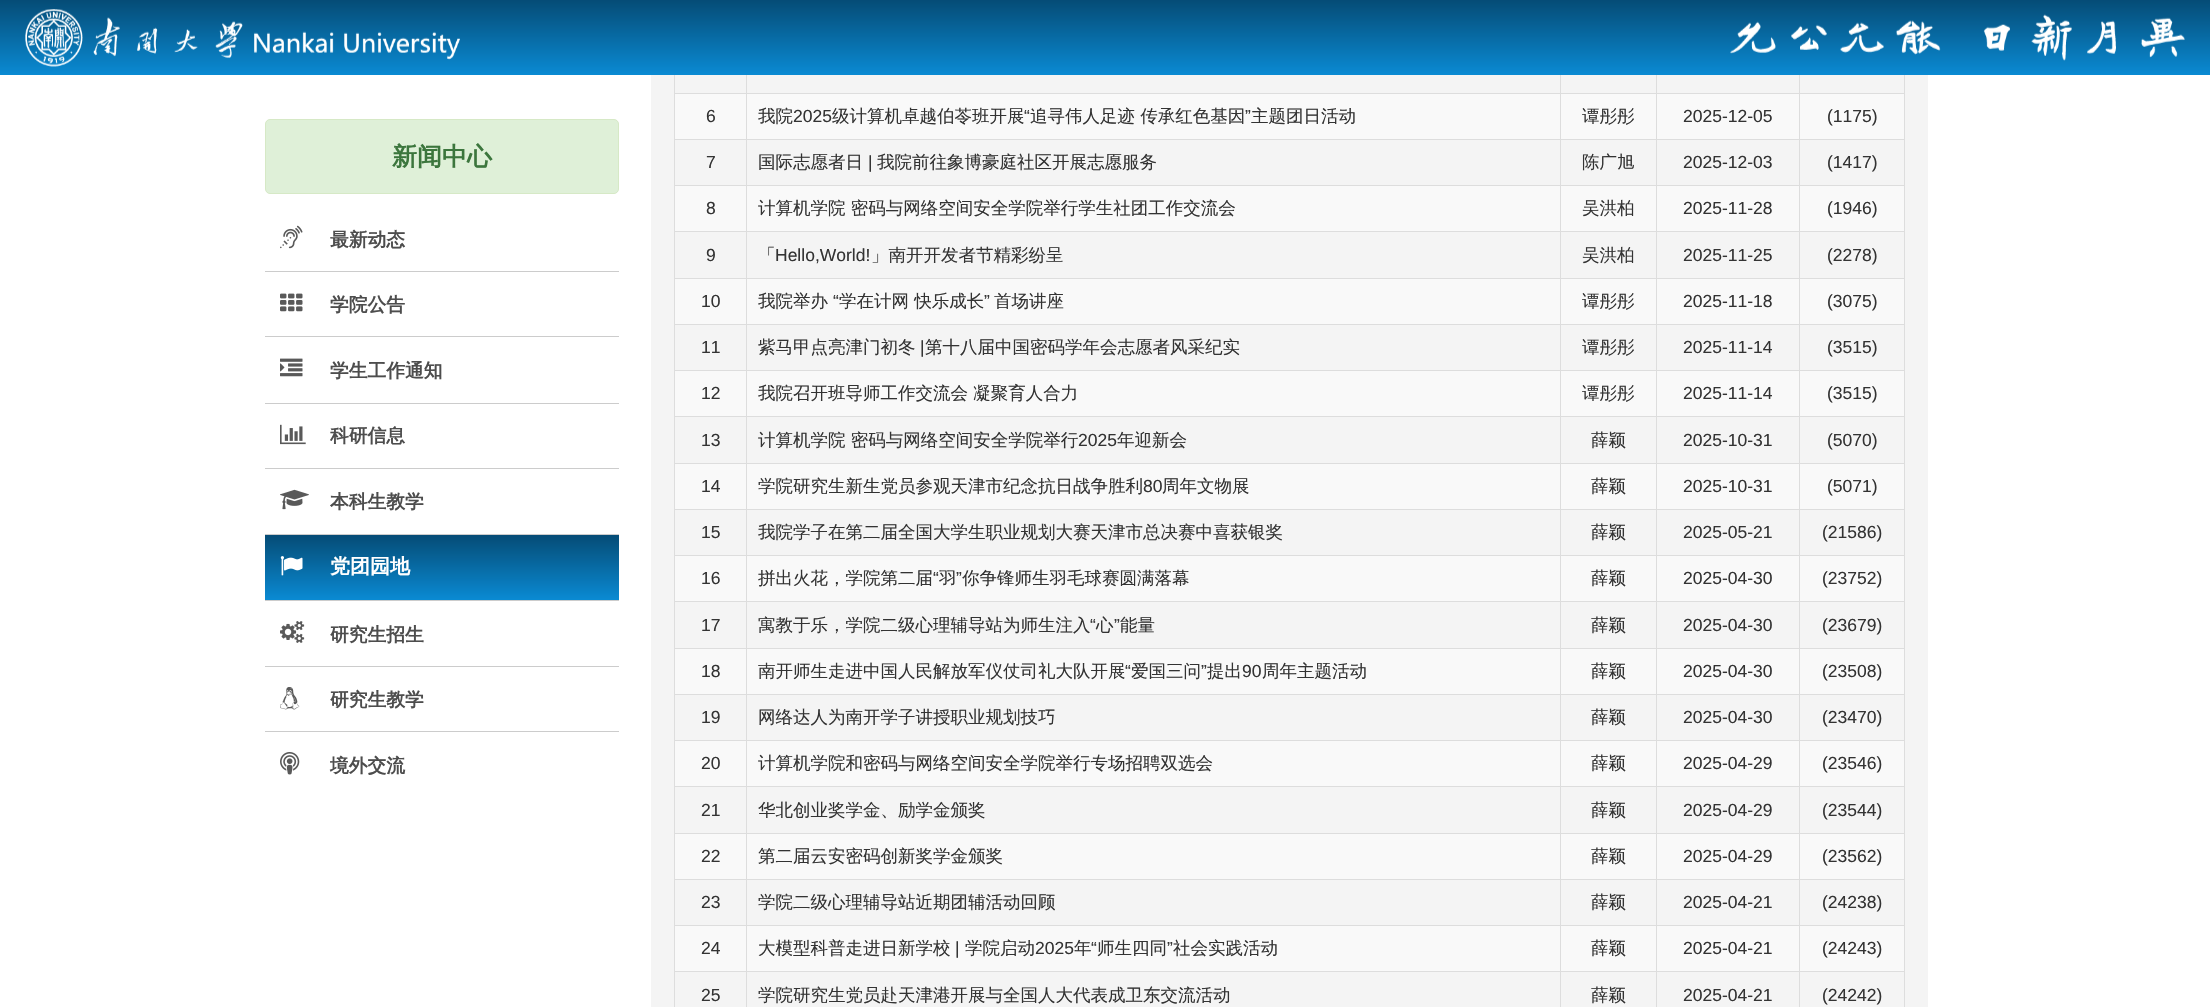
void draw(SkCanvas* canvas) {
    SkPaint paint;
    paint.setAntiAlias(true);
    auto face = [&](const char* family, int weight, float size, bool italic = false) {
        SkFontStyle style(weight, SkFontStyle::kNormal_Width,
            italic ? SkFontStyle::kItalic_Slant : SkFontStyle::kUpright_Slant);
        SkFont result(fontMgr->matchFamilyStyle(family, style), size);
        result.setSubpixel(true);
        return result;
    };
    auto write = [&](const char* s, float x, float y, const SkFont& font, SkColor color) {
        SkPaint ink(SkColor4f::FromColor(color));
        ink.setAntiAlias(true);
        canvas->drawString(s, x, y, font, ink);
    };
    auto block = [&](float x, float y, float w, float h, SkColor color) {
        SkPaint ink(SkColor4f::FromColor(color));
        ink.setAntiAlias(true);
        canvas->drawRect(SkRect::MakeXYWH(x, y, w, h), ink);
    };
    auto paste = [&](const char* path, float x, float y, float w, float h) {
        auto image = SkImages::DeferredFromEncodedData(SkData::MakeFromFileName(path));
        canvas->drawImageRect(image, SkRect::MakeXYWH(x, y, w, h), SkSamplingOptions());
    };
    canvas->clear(SK_ColorWHITE);
    {
        const SkColor colors[] = {SkColorSetRGB(5, 76, 118), SkColorSetRGB(10, 138, 211)};
        const float stops[] = {0, 1};
        const SkPoint ends[] = {{1105, 0}, {1105, 75}};
        paint.setShader(SkGradientShader::MakeLinear(ends, colors, stops, 2, SkTileMode::kClamp));
        paint.setAlpha(255);
    }
    canvas->drawRect(SkRect::MakeXYWH(0, 0, 2210, 75), paint);
    paste("pic1.png", 25, 9, 435, 58);
    paste("pic2.png", 1730, 14, 455, 47);
    paint.setShader(nullptr);
    paint.setColor(SkColorSetRGB(223, 240, 216));
    canvas->drawRoundRect(SkRect::MakeXYWH(265.5f, 119.5f, 353, 74), 4.5f, 4.5f, paint);
    paint.setStyle(SkPaint::kStroke_Style);
    paint.setStrokeWidth(1);
    paint.setColor(SkColorSetRGB(214, 233, 198));
    canvas->drawRoundRect(SkRect::MakeXYWH(265.5f, 119.5f, 353, 74), 4.5f, 4.5f, paint);
    auto kFont1 = face("WenQuanYi Zen Hei", 700, 25);
    write("新闻中心", 392, 165, kFont1, SkColorSetRGB(60, 118, 61));
    block(265, 271, 354, 1, SkColorSetRGB(204, 204, 204));
    paste("pic3.png", 280, 225, 23, 24);
    auto kFont2 = face("WenQuanYi Zen Hei", 700, 18.75f);
    write("最新动态", 330, 246, kFont2, SkColorSetRGB(77, 77, 77));
    block(265, 336, 354, 1, SkColorSetRGB(204, 204, 204));
    paste("pic4.png", 280, 293, 23, 19);
    write("学院公告", 330, 311, kFont2, SkColorSetRGB(77, 77, 77));
    block(265, 403, 354, 1, SkColorSetRGB(204, 204, 204));
    paste("pic5.png", 280, 358, 23, 19);
    write("学生工作通知", 330, 377, kFont2, SkColorSetRGB(77, 77, 77));
    block(265, 468, 354, 1, SkColorSetRGB(204, 204, 204));
    paste("pic6.png", 280, 424, 26, 21);
    write("科研信息", 330, 442, kFont2, SkColorSetRGB(77, 77, 77));
    block(265, 534, 354, 1, SkColorSetRGB(204, 204, 204));
    paste("pic7.png", 280, 489, 29, 21);
    write("本科生教学", 330, 508, kFont2, SkColorSetRGB(77, 77, 77));
    paint.setStyle(SkPaint::kFill_Style);
    {
        const SkColor colors[] = {SkColorSetRGB(5, 76, 118), SkColorSetRGB(10, 138, 211)};
        const float stops[] = {0, 1};
        const SkPoint ends[] = {{442, 535}, {442, 600}};
        paint.setShader(SkGradientShader::MakeLinear(ends, colors, stops, 2, SkTileMode::kClamp));
        paint.setAlpha(255);
    }
    canvas->drawRect(SkRect::MakeXYWH(265, 535, 354, 65), paint);
    block(265, 600, 354, 1, SkColorSetRGB(204, 204, 204));
    paste("pic8.png", 280, 556, 23, 20);
    auto kFont3 = face("WenQuanYi Zen Hei", 700, 20);
    write("党团园地", 330, 573, kFont3, SK_ColorWHITE);
    block(265, 666, 354, 1, SkColorSetRGB(204, 204, 204));
    paste("pic9.png", 280, 621, 25, 22);
    write("研究生招生", 330, 641, kFont2, SkColorSetRGB(77, 77, 77));
    block(265, 731, 354, 1, SkColorSetRGB(204, 204, 204));
    paste("pic10.png", 280, 687, 20, 23);
    write("研究生教学", 330, 706, kFont2, SkColorSetRGB(77, 77, 77));
    paste("pic11.png", 280, 752, 20, 23);
    write("境外交流", 330, 772, kFont2, SkColorSetRGB(77, 77, 77));
    block(651, 75, 1277, 932, SkColorSetRGB(244, 244, 244));
    block(1904, 75, 1, 932, SkColorSetRGB(221, 221, 221));
    block(674, 75, 1, 932, SkColorSetRGB(221, 221, 221));
    block(1799, 93, 106, 1, SkColorSetRGB(221, 221, 221));
    block(675, 94, 1229, 45, SkColorSetRGB(249, 249, 249));
    block(1799, 139, 106, 1, SkColorSetRGB(221, 221, 221));
    block(1799, 185, 106, 1, SkColorSetRGB(221, 221, 221));
    block(675, 186, 1229, 45, SkColorSetRGB(249, 249, 249));
    block(1799, 231, 106, 1, SkColorSetRGB(221, 221, 221));
    block(1799, 278, 106, 1, SkColorSetRGB(221, 221, 221));
    block(675, 279, 1229, 45, SkColorSetRGB(249, 249, 249));
    block(1799, 324, 106, 1, SkColorSetRGB(221, 221, 221));
    block(1799, 370, 106, 1, SkColorSetRGB(221, 221, 221));
    block(675, 371, 1229, 45, SkColorSetRGB(249, 249, 249));
    block(1799, 416, 106, 1, SkColorSetRGB(221, 221, 221));
    block(1799, 463, 106, 1, SkColorSetRGB(221, 221, 221));
    block(675, 464, 1229, 45, SkColorSetRGB(249, 249, 249));
    block(1799, 509, 106, 1, SkColorSetRGB(221, 221, 221));
    block(1799, 555, 106, 1, SkColorSetRGB(221, 221, 221));
    block(675, 556, 1229, 45, SkColorSetRGB(249, 249, 249));
    block(1799, 601, 106, 1, SkColorSetRGB(221, 221, 221));
    block(1799, 648, 106, 1, SkColorSetRGB(221, 221, 221));
    block(675, 649, 1229, 45, SkColorSetRGB(249, 249, 249));
    block(1799, 694, 106, 1, SkColorSetRGB(221, 221, 221));
    block(1799, 740, 106, 1, SkColorSetRGB(221, 221, 221));
    block(675, 741, 1229, 45, SkColorSetRGB(249, 249, 249));
    block(1799, 786, 106, 1, SkColorSetRGB(221, 221, 221));
    block(1799, 833, 106, 1, SkColorSetRGB(221, 221, 221));
    block(675, 834, 1229, 45, SkColorSetRGB(249, 249, 249));
    block(1799, 879, 106, 1, SkColorSetRGB(221, 221, 221));
    block(1799, 925, 106, 1, SkColorSetRGB(221, 221, 221));
    block(675, 926, 1229, 45, SkColorSetRGB(249, 249, 249));
    block(1799, 971, 106, 1, SkColorSetRGB(221, 221, 221));
    block(1799, 971, 1, 36, SkColorSetRGB(221, 221, 221));
    block(1656, 971, 144, 1, SkColorSetRGB(221, 221, 221));
    block(1799, 925, 1, 48, SkColorSetRGB(221, 221, 221));
    block(1656, 925, 144, 1, SkColorSetRGB(221, 221, 221));
    block(1799, 879, 1, 47, SkColorSetRGB(221, 221, 221));
    block(1656, 879, 144, 1, SkColorSetRGB(221, 221, 221));
    block(1799, 833, 1, 47, SkColorSetRGB(221, 221, 221));
    block(1656, 833, 144, 1, SkColorSetRGB(221, 221, 221));
    block(1799, 786, 1, 48, SkColorSetRGB(221, 221, 221));
    block(1656, 786, 144, 1, SkColorSetRGB(221, 221, 221));
    block(1799, 740, 1, 48, SkColorSetRGB(221, 221, 221));
    block(1656, 740, 144, 1, SkColorSetRGB(221, 221, 221));
    block(1799, 694, 1, 47, SkColorSetRGB(221, 221, 221));
    block(1656, 694, 144, 1, SkColorSetRGB(221, 221, 221));
    block(1799, 648, 1, 47, SkColorSetRGB(221, 221, 221));
    block(1656, 648, 144, 1, SkColorSetRGB(221, 221, 221));
    block(1799, 601, 1, 48, SkColorSetRGB(221, 221, 221));
    block(1656, 601, 144, 1, SkColorSetRGB(221, 221, 221));
    block(1799, 555, 1, 48, SkColorSetRGB(221, 221, 221));
    block(1656, 555, 144, 1, SkColorSetRGB(221, 221, 221));
    block(1799, 509, 1, 47, SkColorSetRGB(221, 221, 221));
    block(1656, 509, 144, 1, SkColorSetRGB(221, 221, 221));
    block(1799, 463, 1, 47, SkColorSetRGB(221, 221, 221));
    block(1656, 463, 144, 1, SkColorSetRGB(221, 221, 221));
    block(1799, 416, 1, 48, SkColorSetRGB(221, 221, 221));
    block(1656, 416, 144, 1, SkColorSetRGB(221, 221, 221));
    block(1799, 370, 1, 48, SkColorSetRGB(221, 221, 221));
    block(1656, 370, 144, 1, SkColorSetRGB(221, 221, 221));
    block(1799, 324, 1, 47, SkColorSetRGB(221, 221, 221));
    block(1656, 324, 144, 1, SkColorSetRGB(221, 221, 221));
    block(1799, 278, 1, 47, SkColorSetRGB(221, 221, 221));
    block(1656, 278, 144, 1, SkColorSetRGB(221, 221, 221));
    block(1799, 231, 1, 48, SkColorSetRGB(221, 221, 221));
    block(1656, 231, 144, 1, SkColorSetRGB(221, 221, 221));
    block(1799, 185, 1, 48, SkColorSetRGB(221, 221, 221));
    block(1656, 185, 144, 1, SkColorSetRGB(221, 221, 221));
    block(1799, 139, 1, 47, SkColorSetRGB(221, 221, 221));
    block(1656, 139, 144, 1, SkColorSetRGB(221, 221, 221));
    block(1799, 93, 1, 47, SkColorSetRGB(221, 221, 221));
    block(1656, 93, 144, 1, SkColorSetRGB(221, 221, 221));
    block(1656, 971, 1, 36, SkColorSetRGB(221, 221, 221));
    block(1560, 971, 98, 1, SkColorSetRGB(221, 221, 221));
    block(1656, 925, 1, 48, SkColorSetRGB(221, 221, 221));
    block(1560, 925, 98, 1, SkColorSetRGB(221, 221, 221));
    block(1656, 879, 1, 47, SkColorSetRGB(221, 221, 221));
    block(1560, 879, 98, 1, SkColorSetRGB(221, 221, 221));
    block(1656, 833, 1, 47, SkColorSetRGB(221, 221, 221));
    block(1560, 833, 98, 1, SkColorSetRGB(221, 221, 221));
    block(1656, 786, 1, 48, SkColorSetRGB(221, 221, 221));
    block(1560, 786, 98, 1, SkColorSetRGB(221, 221, 221));
    block(1656, 740, 1, 48, SkColorSetRGB(221, 221, 221));
    block(1560, 740, 98, 1, SkColorSetRGB(221, 221, 221));
    block(1656, 694, 1, 47, SkColorSetRGB(221, 221, 221));
    block(1560, 694, 98, 1, SkColorSetRGB(221, 221, 221));
    block(1656, 648, 1, 47, SkColorSetRGB(221, 221, 221));
    block(1560, 648, 98, 1, SkColorSetRGB(221, 221, 221));
    block(1656, 601, 1, 48, SkColorSetRGB(221, 221, 221));
    block(1560, 601, 98, 1, SkColorSetRGB(221, 221, 221));
    block(1656, 555, 1, 48, SkColorSetRGB(221, 221, 221));
    block(1560, 555, 98, 1, SkColorSetRGB(221, 221, 221));
    block(1656, 509, 1, 47, SkColorSetRGB(221, 221, 221));
    block(1560, 509, 98, 1, SkColorSetRGB(221, 221, 221));
    block(1656, 463, 1, 47, SkColorSetRGB(221, 221, 221));
    block(1560, 463, 98, 1, SkColorSetRGB(221, 221, 221));
    block(1656, 416, 1, 48, SkColorSetRGB(221, 221, 221));
    block(1560, 416, 98, 1, SkColorSetRGB(221, 221, 221));
    block(1656, 370, 1, 48, SkColorSetRGB(221, 221, 221));
    block(1560, 370, 98, 1, SkColorSetRGB(221, 221, 221));
    block(1656, 324, 1, 47, SkColorSetRGB(221, 221, 221));
    block(1560, 324, 98, 1, SkColorSetRGB(221, 221, 221));
    block(1656, 278, 1, 47, SkColorSetRGB(221, 221, 221));
    block(1560, 278, 98, 1, SkColorSetRGB(221, 221, 221));
    block(1656, 231, 1, 48, SkColorSetRGB(221, 221, 221));
    block(1560, 231, 98, 1, SkColorSetRGB(221, 221, 221));
    block(1656, 185, 1, 48, SkColorSetRGB(221, 221, 221));
    block(1560, 185, 98, 1, SkColorSetRGB(221, 221, 221));
    block(1656, 139, 1, 47, SkColorSetRGB(221, 221, 221));
    block(1560, 139, 98, 1, SkColorSetRGB(221, 221, 221));
    block(1656, 93, 1, 47, SkColorSetRGB(221, 221, 221));
    block(1560, 93, 98, 1, SkColorSetRGB(221, 221, 221));
    block(1560, 971, 1, 36, SkColorSetRGB(221, 221, 221));
    block(746, 971, 815, 1, SkColorSetRGB(221, 221, 221));
    block(1560, 925, 1, 48, SkColorSetRGB(221, 221, 221));
    block(746, 925, 815, 1, SkColorSetRGB(221, 221, 221));
    block(1560, 879, 1, 47, SkColorSetRGB(221, 221, 221));
    block(746, 879, 815, 1, SkColorSetRGB(221, 221, 221));
    block(1560, 833, 1, 47, SkColorSetRGB(221, 221, 221));
    block(746, 833, 815, 1, SkColorSetRGB(221, 221, 221));
    block(1560, 786, 1, 48, SkColorSetRGB(221, 221, 221));
    block(746, 786, 815, 1, SkColorSetRGB(221, 221, 221));
    block(1560, 740, 1, 48, SkColorSetRGB(221, 221, 221));
    block(746, 740, 815, 1, SkColorSetRGB(221, 221, 221));
    block(1560, 694, 1, 47, SkColorSetRGB(221, 221, 221));
    block(746, 694, 815, 1, SkColorSetRGB(221, 221, 221));
    block(1560, 648, 1, 47, SkColorSetRGB(221, 221, 221));
    block(746, 648, 815, 1, SkColorSetRGB(221, 221, 221));
    block(1560, 601, 1, 48, SkColorSetRGB(221, 221, 221));
    block(746, 601, 815, 1, SkColorSetRGB(221, 221, 221));
    block(1560, 555, 1, 48, SkColorSetRGB(221, 221, 221));
    block(746, 555, 815, 1, SkColorSetRGB(221, 221, 221));
    block(1560, 509, 1, 47, SkColorSetRGB(221, 221, 221));
    block(746, 509, 815, 1, SkColorSetRGB(221, 221, 221));
    block(1560, 463, 1, 47, SkColorSetRGB(221, 221, 221));
    block(746, 463, 815, 1, SkColorSetRGB(221, 221, 221));
    block(1560, 416, 1, 48, SkColorSetRGB(221, 221, 221));
    block(746, 416, 815, 1, SkColorSetRGB(221, 221, 221));
    block(1560, 370, 1, 48, SkColorSetRGB(221, 221, 221));
    block(746, 370, 815, 1, SkColorSetRGB(221, 221, 221));
    block(1560, 324, 1, 47, SkColorSetRGB(221, 221, 221));
    block(746, 324, 815, 1, SkColorSetRGB(221, 221, 221));
    block(1560, 278, 1, 47, SkColorSetRGB(221, 221, 221));
    block(746, 278, 815, 1, SkColorSetRGB(221, 221, 221));
    block(1560, 231, 1, 48, SkColorSetRGB(221, 221, 221));
    block(746, 231, 815, 1, SkColorSetRGB(221, 221, 221));
    block(1560, 185, 1, 48, SkColorSetRGB(221, 221, 221));
    block(746, 185, 815, 1, SkColorSetRGB(221, 221, 221));
    block(1560, 139, 1, 47, SkColorSetRGB(221, 221, 221));
    block(746, 139, 815, 1, SkColorSetRGB(221, 221, 221));
    block(1560, 93, 1, 47, SkColorSetRGB(221, 221, 221));
    block(746, 93, 815, 1, SkColorSetRGB(221, 221, 221));
    block(746, 971, 1, 36, SkColorSetRGB(221, 221, 221));
    block(674, 971, 74, 1, SkColorSetRGB(221, 221, 221));
    block(746, 925, 1, 48, SkColorSetRGB(221, 221, 221));
    block(674, 925, 74, 1, SkColorSetRGB(221, 221, 221));
    block(746, 879, 1, 47, SkColorSetRGB(221, 221, 221));
    block(674, 879, 74, 1, SkColorSetRGB(221, 221, 221));
    block(746, 833, 1, 47, SkColorSetRGB(221, 221, 221));
    block(674, 833, 74, 1, SkColorSetRGB(221, 221, 221));
    block(746, 786, 1, 48, SkColorSetRGB(221, 221, 221));
    block(674, 786, 74, 1, SkColorSetRGB(221, 221, 221));
    block(746, 740, 1, 48, SkColorSetRGB(221, 221, 221));
    block(674, 740, 74, 1, SkColorSetRGB(221, 221, 221));
    block(746, 694, 1, 47, SkColorSetRGB(221, 221, 221));
    block(674, 694, 74, 1, SkColorSetRGB(221, 221, 221));
    block(746, 648, 1, 47, SkColorSetRGB(221, 221, 221));
    block(674, 648, 74, 1, SkColorSetRGB(221, 221, 221));
    block(746, 601, 1, 48, SkColorSetRGB(221, 221, 221));
    block(674, 601, 74, 1, SkColorSetRGB(221, 221, 221));
    block(746, 555, 1, 48, SkColorSetRGB(221, 221, 221));
    block(674, 555, 74, 1, SkColorSetRGB(221, 221, 221));
    block(746, 509, 1, 47, SkColorSetRGB(221, 221, 221));
    block(674, 509, 74, 1, SkColorSetRGB(221, 221, 221));
    block(746, 463, 1, 47, SkColorSetRGB(221, 221, 221));
    block(674, 463, 74, 1, SkColorSetRGB(221, 221, 221));
    block(746, 416, 1, 48, SkColorSetRGB(221, 221, 221));
    block(674, 416, 74, 1, SkColorSetRGB(221, 221, 221));
    block(746, 370, 1, 48, SkColorSetRGB(221, 221, 221));
    block(674, 370, 74, 1, SkColorSetRGB(221, 221, 221));
    block(746, 324, 1, 47, SkColorSetRGB(221, 221, 221));
    block(674, 324, 74, 1, SkColorSetRGB(221, 221, 221));
    block(746, 278, 1, 47, SkColorSetRGB(221, 221, 221));
    block(674, 278, 74, 1, SkColorSetRGB(221, 221, 221));
    block(746, 231, 1, 48, SkColorSetRGB(221, 221, 221));
    block(674, 231, 74, 1, SkColorSetRGB(221, 221, 221));
    block(746, 185, 1, 48, SkColorSetRGB(221, 221, 221));
    block(674, 185, 74, 1, SkColorSetRGB(221, 221, 221));
    block(746, 139, 1, 47, SkColorSetRGB(221, 221, 221));
    block(674, 139, 74, 1, SkColorSetRGB(221, 221, 221));
    block(746, 93, 1, 47, SkColorSetRGB(221, 221, 221));
    block(674, 93, 74, 1, SkColorSetRGB(221, 221, 221));
    block(746, 75, 1, 19, SkColorSetRGB(221, 221, 221));
    block(1560, 75, 1, 19, SkColorSetRGB(221, 221, 221));
    block(1656, 75, 1, 19, SkColorSetRGB(221, 221, 221));
    block(1799, 75, 1, 19, SkColorSetRGB(221, 221, 221));
    auto kFont4 = face("Liberation Sans", 400, 17.5f);
    write("6", 706, 122, kFont4, SkColorSetRGB(51, 51, 51));
    auto kFont5 = face("WenQuanYi Zen Hei", 500, 17.5f);
    write("我院", 758, 122, kFont5, SkColorSetRGB(51, 51, 51));
    write("2025", 793, 122, kFont4, SkColorSetRGB(51, 51, 51));
    write("级计算机卓越伯苓班开展", 832, 122, kFont5, SkColorSetRGB(51, 51, 51));
    write("“", 1024, 122, kFont4, SkColorSetRGB(51, 51, 51));
    write("追寻伟人足迹 传承红色基因", 1030, 122, kFont5, SkColorSetRGB(51, 51, 51));
    write("”", 1245, 122, kFont4, SkColorSetRGB(51, 51, 51));
    write("主题团日活动", 1251, 122, kFont5, SkColorSetRGB(51, 51, 51));
    write("谭彤彤", 1582, 122, kFont5, SkColorSetRGB(51, 51, 51));
    write("2025-12-05", 1683, 122, kFont4, SkColorSetRGB(51, 51, 51));
    write("(1175)", 1827, 122, kFont4, SkColorSetRGB(51, 51, 51));
    write("7", 706, 168, kFont4, SkColorSetRGB(51, 51, 51));
    write("国际志愿者日", 758, 168, kFont5, SkColorSetRGB(51, 51, 51));
    write("|", 868, 168, kFont4, SkColorSetRGB(51, 51, 51));
    write("我院前往象博豪庭社区开展志愿服务", 877, 168, kFont5, SkColorSetRGB(51, 51, 51));
    write("陈广旭", 1582, 168, kFont5, SkColorSetRGB(51, 51, 51));
    write("2025-12-03", 1683, 168, kFont4, SkColorSetRGB(51, 51, 51));
    write("(1417)", 1827, 168, kFont4, SkColorSetRGB(51, 51, 51));
    write("8", 706, 214, kFont4, SkColorSetRGB(51, 51, 51));
    write("计算机学院 密码与网络空间安全学院举行学生社团工作交流会", 758, 214, kFont5, SkColorSetRGB(51, 51, 51));
    write("吴洪柏", 1582, 214, kFont5, SkColorSetRGB(51, 51, 51));
    write("2025-11-28", 1683, 214, kFont4, SkColorSetRGB(51, 51, 51));
    write("(1946)", 1827, 214, kFont4, SkColorSetRGB(51, 51, 51));
    write("9", 706, 261, kFont4, SkColorSetRGB(51, 51, 51));
    write("「", 758, 261, kFont5, SkColorSetRGB(51, 51, 51));
    write("Hello,World!", 775, 261, kFont4, SkColorSetRGB(51, 51, 51));
    write("」南开开发者节精彩纷呈", 871, 261, kFont5, SkColorSetRGB(51, 51, 51));
    write("吴洪柏", 1582, 261, kFont5, SkColorSetRGB(51, 51, 51));
    write("2025-11-25", 1683, 261, kFont4, SkColorSetRGB(51, 51, 51));
    write("(2278)", 1827, 261, kFont4, SkColorSetRGB(51, 51, 51));
    write("10", 701, 307, kFont4, SkColorSetRGB(51, 51, 51));
    write("我院举办", 758, 307, kFont5, SkColorSetRGB(51, 51, 51));
    write("“", 833, 307, kFont4, SkColorSetRGB(51, 51, 51));
    write("学在计网 快乐成长", 839, 307, kFont5, SkColorSetRGB(51, 51, 51));
    write("”", 984, 307, kFont4, SkColorSetRGB(51, 51, 51));
    write("首场讲座", 994, 307, kFont5, SkColorSetRGB(51, 51, 51));
    write("谭彤彤", 1582, 307, kFont5, SkColorSetRGB(51, 51, 51));
    write("2025-11-18", 1683, 307, kFont4, SkColorSetRGB(51, 51, 51));
    write("(3075)", 1827, 307, kFont4, SkColorSetRGB(51, 51, 51));
    write("11", 701, 353, kFont4, SkColorSetRGB(51, 51, 51));
    write("紫马甲点亮津门初冬", 758, 353, kFont5, SkColorSetRGB(51, 51, 51));
    write("|", 920, 353, kFont4, SkColorSetRGB(51, 51, 51));
    write("第十八届中国密码学年会志愿者风采纪实", 925, 353, kFont5, SkColorSetRGB(51, 51, 51));
    write("谭彤彤", 1582, 353, kFont5, SkColorSetRGB(51, 51, 51));
    write("2025-11-14", 1683, 353, kFont4, SkColorSetRGB(51, 51, 51));
    write("(3515)", 1827, 353, kFont4, SkColorSetRGB(51, 51, 51));
    write("12", 701, 399, kFont4, SkColorSetRGB(51, 51, 51));
    write("我院召开班导师工作交流会 凝聚育人合力", 758, 399, kFont5, SkColorSetRGB(51, 51, 51));
    write("谭彤彤", 1582, 399, kFont5, SkColorSetRGB(51, 51, 51));
    write("2025-11-14", 1683, 399, kFont4, SkColorSetRGB(51, 51, 51));
    write("(3515)", 1827, 399, kFont4, SkColorSetRGB(51, 51, 51));
    write("13", 701, 446, kFont4, SkColorSetRGB(51, 51, 51));
    write("计算机学院 密码与网络空间安全学院举行", 758, 446, kFont5, SkColorSetRGB(51, 51, 51));
    write("2025", 1078, 446, kFont4, SkColorSetRGB(51, 51, 51));
    write("年迎新会", 1117, 446, kFont5, SkColorSetRGB(51, 51, 51));
    write("薛颖", 1591, 446, kFont5, SkColorSetRGB(51, 51, 51));
    write("2025-10-31", 1683, 446, kFont4, SkColorSetRGB(51, 51, 51));
    write("(5070)", 1827, 446, kFont4, SkColorSetRGB(51, 51, 51));
    write("14", 701, 492, kFont4, SkColorSetRGB(51, 51, 51));
    write("学院研究生新生党员参观天津市纪念抗日战争胜利", 758, 492, kFont5, SkColorSetRGB(51, 51, 51));
    write("80", 1143, 492, kFont4, SkColorSetRGB(51, 51, 51));
    write("周年文物展", 1162, 492, kFont5, SkColorSetRGB(51, 51, 51));
    write("薛颖", 1591, 492, kFont5, SkColorSetRGB(51, 51, 51));
    write("2025-10-31", 1683, 492, kFont4, SkColorSetRGB(51, 51, 51));
    write("(5071)", 1827, 492, kFont4, SkColorSetRGB(51, 51, 51));
    write("15", 701, 538, kFont4, SkColorSetRGB(51, 51, 51));
    write("我院学子在第二届全国大学生职业规划大赛天津市总决赛中喜获银奖", 758, 538, kFont5, SkColorSetRGB(51, 51, 51));
    write("薛颖", 1591, 538, kFont5, SkColorSetRGB(51, 51, 51));
    write("2025-05-21", 1683, 538, kFont4, SkColorSetRGB(51, 51, 51));
    write("(21586)", 1822, 538, kFont4, SkColorSetRGB(51, 51, 51));
    write("16", 701, 584, kFont4, SkColorSetRGB(51, 51, 51));
    write("拼出火花，学院第二届", 758, 584, kFont5, SkColorSetRGB(51, 51, 51));
    write("“", 933, 584, kFont4, SkColorSetRGB(51, 51, 51));
    write("羽", 939, 584, kFont5, SkColorSetRGB(51, 51, 51));
    write("”", 956, 584, kFont4, SkColorSetRGB(51, 51, 51));
    write("你争锋师生羽毛球赛圆满落幕", 962, 584, kFont5, SkColorSetRGB(51, 51, 51));
    write("薛颖", 1591, 584, kFont5, SkColorSetRGB(51, 51, 51));
    write("2025-04-30", 1683, 584, kFont4, SkColorSetRGB(51, 51, 51));
    write("(23752)", 1822, 584, kFont4, SkColorSetRGB(51, 51, 51));
    write("17", 701, 631, kFont4, SkColorSetRGB(51, 51, 51));
    write("寓教于乐，学院二级心理辅导站为师生注入", 758, 631, kFont5, SkColorSetRGB(51, 51, 51));
    write("“", 1090, 631, kFont4, SkColorSetRGB(51, 51, 51));
    write("心", 1096, 631, kFont5, SkColorSetRGB(51, 51, 51));
    write("”", 1114, 631, kFont4, SkColorSetRGB(51, 51, 51));
    write("能量", 1120, 631, kFont5, SkColorSetRGB(51, 51, 51));
    write("薛颖", 1591, 631, kFont5, SkColorSetRGB(51, 51, 51));
    write("2025-04-30", 1683, 631, kFont4, SkColorSetRGB(51, 51, 51));
    write("(23679)", 1822, 631, kFont4, SkColorSetRGB(51, 51, 51));
    write("18", 701, 677, kFont4, SkColorSetRGB(51, 51, 51));
    write("南开师生走进中国人民解放军仪仗司礼大队开展", 758, 677, kFont5, SkColorSetRGB(51, 51, 51));
    write("“", 1125, 677, kFont4, SkColorSetRGB(51, 51, 51));
    write("爱国三问", 1131, 677, kFont5, SkColorSetRGB(51, 51, 51));
    write("”", 1201, 677, kFont4, SkColorSetRGB(51, 51, 51));
    write("提出", 1207, 677, kFont5, SkColorSetRGB(51, 51, 51));
    write("90", 1242, 677, kFont4, SkColorSetRGB(51, 51, 51));
    write("周年主题活动", 1262, 677, kFont5, SkColorSetRGB(51, 51, 51));
    write("薛颖", 1591, 677, kFont5, SkColorSetRGB(51, 51, 51));
    write("2025-04-30", 1683, 677, kFont4, SkColorSetRGB(51, 51, 51));
    write("(23508)", 1822, 677, kFont4, SkColorSetRGB(51, 51, 51));
    write("19", 701, 723, kFont4, SkColorSetRGB(51, 51, 51));
    write("网络达人为南开学子讲授职业规划技巧", 758, 723, kFont5, SkColorSetRGB(51, 51, 51));
    write("薛颖", 1591, 723, kFont5, SkColorSetRGB(51, 51, 51));
    write("2025-04-30", 1683, 723, kFont4, SkColorSetRGB(51, 51, 51));
    write("(23470)", 1822, 723, kFont4, SkColorSetRGB(51, 51, 51));
    write("20", 701, 769, kFont4, SkColorSetRGB(51, 51, 51));
    write("计算机学院和密码与网络空间安全学院举行专场招聘双选会", 758, 769, kFont5, SkColorSetRGB(51, 51, 51));
    write("薛颖", 1591, 769, kFont5, SkColorSetRGB(51, 51, 51));
    write("2025-04-29", 1683, 769, kFont4, SkColorSetRGB(51, 51, 51));
    write("(23546)", 1822, 769, kFont4, SkColorSetRGB(51, 51, 51));
    write("21", 701, 816, kFont4, SkColorSetRGB(51, 51, 51));
    write("华北创业奖学金、励学金颁奖", 758, 816, kFont5, SkColorSetRGB(51, 51, 51));
    write("薛颖", 1591, 816, kFont5, SkColorSetRGB(51, 51, 51));
    write("2025-04-29", 1683, 816, kFont4, SkColorSetRGB(51, 51, 51));
    write("(23544)", 1822, 816, kFont4, SkColorSetRGB(51, 51, 51));
    write("22", 701, 862, kFont4, SkColorSetRGB(51, 51, 51));
    write("第二届云安密码创新奖学金颁奖", 758, 862, kFont5, SkColorSetRGB(51, 51, 51));
    write("薛颖", 1591, 862, kFont5, SkColorSetRGB(51, 51, 51));
    write("2025-04-29", 1683, 862, kFont4, SkColorSetRGB(51, 51, 51));
    write("(23562)", 1822, 862, kFont4, SkColorSetRGB(51, 51, 51));
    write("23", 701, 908, kFont4, SkColorSetRGB(51, 51, 51));
    write("学院二级心理辅导站近期团辅活动回顾", 758, 908, kFont5, SkColorSetRGB(51, 51, 51));
    write("薛颖", 1591, 908, kFont5, SkColorSetRGB(51, 51, 51));
    write("2025-04-21", 1683, 908, kFont4, SkColorSetRGB(51, 51, 51));
    write("(24238)", 1822, 908, kFont4, SkColorSetRGB(51, 51, 51));
    write("24", 701, 954, kFont4, SkColorSetRGB(51, 51, 51));
    write("大模型科普走进日新学校", 758, 954, kFont5, SkColorSetRGB(51, 51, 51));
    write("|", 955, 954, kFont4, SkColorSetRGB(51, 51, 51));
    write("学院启动", 965, 954, kFont5, SkColorSetRGB(51, 51, 51));
    write("2025", 1035, 954, kFont4, SkColorSetRGB(51, 51, 51));
    write("年", 1074, 954, kFont5, SkColorSetRGB(51, 51, 51));
    write("“", 1091, 954, kFont4, SkColorSetRGB(51, 51, 51));
    write("师生四同", 1097, 954, kFont5, SkColorSetRGB(51, 51, 51));
    write("”", 1167, 954, kFont4, SkColorSetRGB(51, 51, 51));
    write("社会实践活动", 1173, 954, kFont5, SkColorSetRGB(51, 51, 51));
    write("薛颖", 1591, 954, kFont5, SkColorSetRGB(51, 51, 51));
    write("2025-04-21", 1683, 954, kFont4, SkColorSetRGB(51, 51, 51));
    write("(24243)", 1822, 954, kFont4, SkColorSetRGB(51, 51, 51));
    write("25", 701, 1001, kFont4, SkColorSetRGB(51, 51, 51));
    write("学院研究生党员赴天津港开展与全国人大代表成卫东交流活动", 758, 1001, kFont5, SkColorSetRGB(51, 51, 51));
    write("薛颖", 1591, 1001, kFont5, SkColorSetRGB(51, 51, 51));
    write("2025-04-21", 1683, 1001, kFont4, SkColorSetRGB(51, 51, 51));
    write("(24242)", 1822, 1001, kFont4, SkColorSetRGB(51, 51, 51));
}
